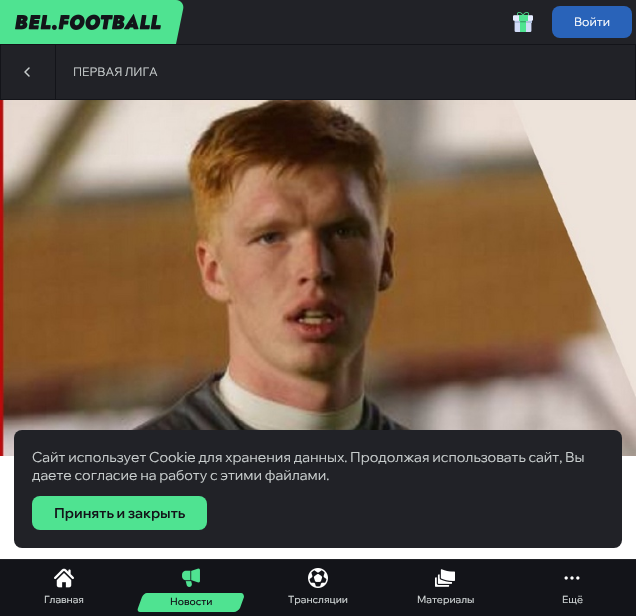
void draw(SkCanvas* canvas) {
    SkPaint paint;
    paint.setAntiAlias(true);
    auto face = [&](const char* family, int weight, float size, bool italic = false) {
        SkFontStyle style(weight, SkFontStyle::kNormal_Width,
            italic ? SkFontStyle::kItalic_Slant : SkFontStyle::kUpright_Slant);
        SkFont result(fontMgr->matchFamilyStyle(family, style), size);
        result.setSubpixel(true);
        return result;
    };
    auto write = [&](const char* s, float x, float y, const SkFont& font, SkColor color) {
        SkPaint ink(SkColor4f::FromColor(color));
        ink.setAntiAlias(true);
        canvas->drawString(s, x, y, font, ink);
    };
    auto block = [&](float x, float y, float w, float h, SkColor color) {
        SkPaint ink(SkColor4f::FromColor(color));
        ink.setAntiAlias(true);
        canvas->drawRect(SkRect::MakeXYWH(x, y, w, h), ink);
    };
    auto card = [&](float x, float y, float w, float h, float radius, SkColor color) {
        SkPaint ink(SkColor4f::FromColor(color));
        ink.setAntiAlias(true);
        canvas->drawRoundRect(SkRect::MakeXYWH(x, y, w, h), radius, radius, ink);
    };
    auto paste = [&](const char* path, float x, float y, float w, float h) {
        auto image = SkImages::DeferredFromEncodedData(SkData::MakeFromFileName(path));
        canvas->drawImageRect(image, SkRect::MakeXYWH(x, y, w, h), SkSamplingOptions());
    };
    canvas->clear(SkColorSetRGB(19, 20, 25));
    block(176, 0, 460, 44, SkColorSetRGB(33, 34, 39));
    paste("pic1.png", 0, 0, 184, 44);
    paste("pic2.png", 513, 12, 20, 20);
    card(552, 6, 80, 32, 8, SkColorSetRGB(41, 99, 185));
    auto kFont1 = face("Wix Madefor Display", 400, 12);
    write("Войти", 574, 26, kFont1, SK_ColorWHITE);
    block(0, 559, 636, 1, SkColorSetRGB(33, 34, 39));
    paste("pic3.png", 54, 568, 20, 20);
    auto kFont2 = face("Wix Madefor Display", 500, 10);
    write("Главная", 44, 603, kFont2, SkColorSetRGB(200, 205, 205));
    paste("pic4.png", 182, 568, 18, 19);
    paint.setColor(SkColorSetRGB(79, 227, 145));
    canvas->drawPath(SkPathBuilder().moveTo(147, 593).lineTo(241, 593).cubicTo(243, 593, 244, 595, 244, 597).lineTo(240, 608).cubicTo(239, 610, 236, 612, 234, 612).lineTo(140, 612).cubicTo(138, 612, 137, 610, 138, 608).lineTo(142, 597).cubicTo(143, 595, 145, 593, 147, 593).close().detach(), paint);
    write("Новости", 170, 605, kFont2, SkColorSetRGB(19, 20, 25));
    paste("pic5.png", 308, 568, 20, 20);
    write("Трансляции", 288, 603, kFont2, SkColorSetRGB(200, 205, 205));
    paste("pic6.png", 435, 569, 20, 18);
    write("Материалы", 417, 603, kFont2, SkColorSetRGB(200, 205, 205));
    paste("pic7.png", 564, 576, 16, 4);
    write("Ещё", 562, 603, kFont2, SkColorSetRGB(200, 205, 205));
    block(1, 45, 54, 54, SkColorSetRGB(33, 34, 39));
    paint.setStyle(SkPaint::kStroke_Style);
    paint.setStrokeWidth(1.5f);
    paint.setStrokeCap(SkPaint::kRound_Cap);
    paint.setStrokeJoin(SkPaint::kRound_Join);
    paint.setColor(SkColorSetRGB(200, 205, 205));
    canvas->drawPath(SkPathBuilder().moveTo(29, 76).lineTo(25, 72).lineTo(29, 68).detach(), paint);
    block(56, 45, 579, 54, SkColorSetRGB(33, 34, 39));
    write("ПЕРВАЯ ЛИГА", 73, 76, kFont1, SkColorSetRGB(200, 205, 205));
    block(0, 456, 636, 103, SK_ColorWHITE);
    paste("pic8.png", 0, 100, 636, 356);
    card(14, 430, 608, 118, 8, SkColorSetRGB(33, 34, 39));
    auto kFont3 = face("Wix Madefor Display", 400, 14);
    write("Сайт использует Cookie для хранения данных. Продолжая использовать сайт, Вы", 32, 462, kFont3, SkColorSetRGB(200, 205, 205));
    write("даете согласие на работу с этими файлами.", 32, 480, kFont3, SkColorSetRGB(200, 205, 205));
    card(32, 496, 175, 34, 8, SkColorSetRGB(79, 227, 145));
    auto kFont4 = face("Wix Madefor Display", 600, 14);
    write("Принять и закрыть", 54, 518, kFont4, SkColorSetRGB(19, 20, 25));
}
